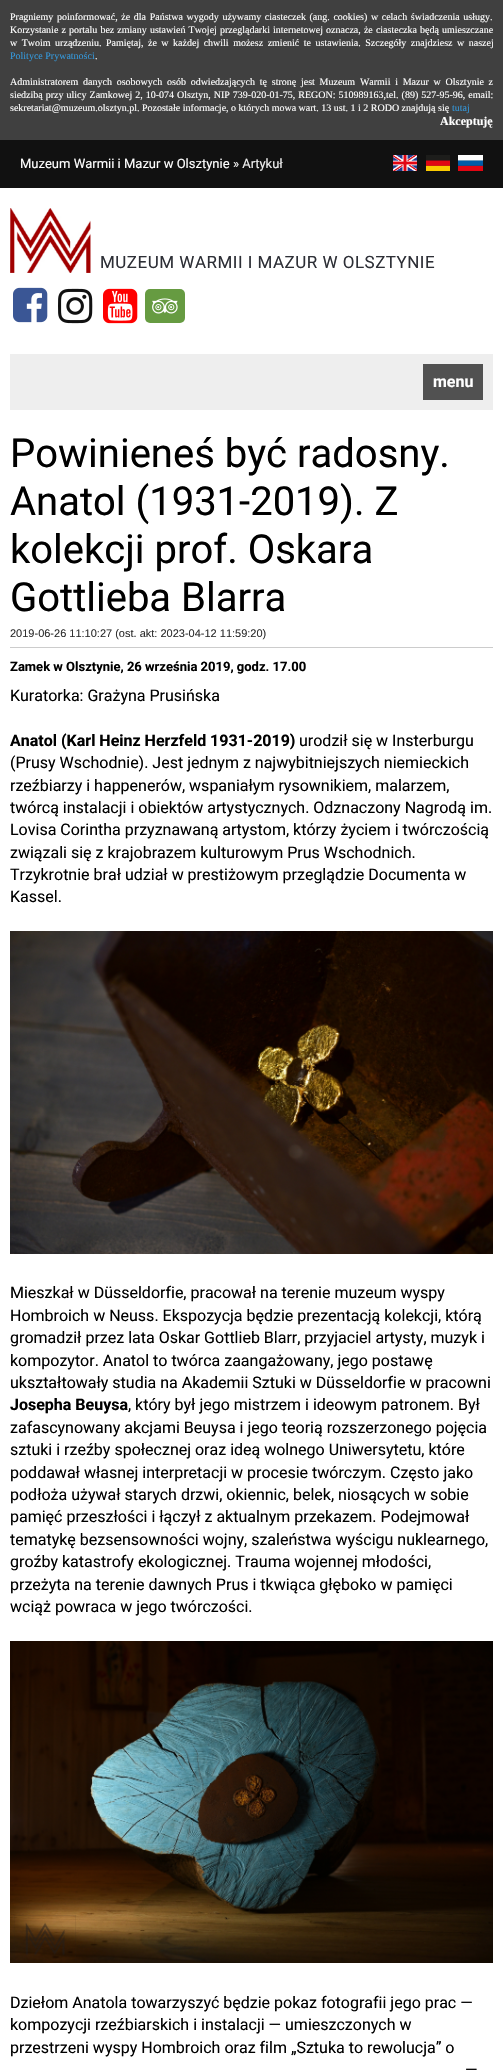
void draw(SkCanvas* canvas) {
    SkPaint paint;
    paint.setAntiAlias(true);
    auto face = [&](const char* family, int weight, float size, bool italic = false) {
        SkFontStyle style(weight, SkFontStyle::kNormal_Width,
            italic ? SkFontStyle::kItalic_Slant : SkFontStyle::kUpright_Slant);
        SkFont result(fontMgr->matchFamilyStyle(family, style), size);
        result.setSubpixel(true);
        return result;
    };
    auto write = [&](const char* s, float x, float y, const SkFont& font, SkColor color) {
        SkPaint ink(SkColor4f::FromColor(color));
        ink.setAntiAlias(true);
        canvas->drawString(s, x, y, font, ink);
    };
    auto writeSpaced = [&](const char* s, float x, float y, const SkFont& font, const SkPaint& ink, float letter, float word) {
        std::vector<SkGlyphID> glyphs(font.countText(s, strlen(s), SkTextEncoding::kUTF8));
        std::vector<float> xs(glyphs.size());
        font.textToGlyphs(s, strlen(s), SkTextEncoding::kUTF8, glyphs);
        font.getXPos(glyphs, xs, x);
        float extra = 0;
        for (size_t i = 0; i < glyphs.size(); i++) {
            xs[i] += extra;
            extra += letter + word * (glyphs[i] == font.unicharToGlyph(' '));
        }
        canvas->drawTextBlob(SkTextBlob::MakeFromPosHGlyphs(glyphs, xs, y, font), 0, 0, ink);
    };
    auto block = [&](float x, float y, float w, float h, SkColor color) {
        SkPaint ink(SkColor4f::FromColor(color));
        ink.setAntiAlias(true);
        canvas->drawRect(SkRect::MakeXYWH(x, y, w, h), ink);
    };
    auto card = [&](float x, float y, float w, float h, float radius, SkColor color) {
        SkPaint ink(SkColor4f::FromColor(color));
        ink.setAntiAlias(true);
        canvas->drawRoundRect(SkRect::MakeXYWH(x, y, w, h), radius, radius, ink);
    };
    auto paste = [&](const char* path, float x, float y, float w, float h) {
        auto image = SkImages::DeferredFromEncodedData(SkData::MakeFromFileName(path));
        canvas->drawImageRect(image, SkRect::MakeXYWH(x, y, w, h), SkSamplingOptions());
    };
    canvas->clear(SK_ColorWHITE);
    block(0, 0, 503, 140, SkColorSetRGB(64, 64, 64));
    auto kFont1 = face("Liberation Serif", 400, 10);
    paint.setColor(SK_ColorWHITE);
    writeSpaced("Pragniemy poinformować, że dla Państwa wygody używamy ciasteczek (ang. cookies) w celach świadczenia usługy.", 10, 20, kFont1, paint, 0, 1.1f);
    writeSpaced("Korzystanie z portalu bez zmiany ustawień Twojej przeglądarki internetowej oznacza, że ciasteczka będą umieszczane", 10, 33, kFont1, paint, 0, 0.6f);
    writeSpaced("w Twoim urządzeniu. Pamiętaj, że w każdej chwili możesz zmienić te ustawienia. Szczegóły znajdziesz w naszej", 10, 46, kFont1, paint, 0, 2);
    write("Polityce Prywatności", 10, 59, kFont1, SkColorSetRGB(52, 152, 219));
    write(".", 95, 59, kFont1, SK_ColorWHITE);
    writeSpaced("Administratorem danych osobowych osób odwiedzających tę stronę jest Muzeum Warmii i Mazur w Olsztynie z", 10, 85, kFont1, paint, 0, 2.25f);
    writeSpaced("siedzibą przy ulicy Zamkowej 2, 10-074 Olsztyn, NIP 739-020-01-75, REGON: 510989163,tel. (89) 527-95-96, email:", 10, 98, kFont1, paint, 0, 0.5f);
    write("sekretariat@muzeum.olsztyn.pl. Pozostałe informacje, o których mowa wart. 13 ust. 1 i 2 RODO znajdują się", 10, 111, kFont1, SK_ColorWHITE);
    write("tutaj", 452, 111, kFont1, SkColorSetRGB(52, 152, 219));
    auto kFont2 = face("Liberation Serif", 700, 12);
    write("Akceptuję", 440, 125, kFont2, SK_ColorWHITE);
    block(0, 140, 503, 48, SkColorSetRGB(17, 17, 17));
    auto kFont3 = face("Roboto", 400, 13);
    write("Muzeum Warmii i Mazur w Olsztynie", 20, 168, kFont3, SK_ColorWHITE);
    write("» Artykuł", 233, 168, kFont3, SkColorSetRGB(238, 238, 238));
    paste("pic1.png", 393, 155, 24, 16);
    paste("pic2.png", 426, 155, 24, 16);
    paste("pic3.png", 458, 155, 25, 16);
    paste("pic4.png", 10, 208, 81, 65);
    auto kFont4 = face("Roboto", 400, 17);
    paint.setColor(SkColorSetRGB(45, 47, 54));
    writeSpaced("MUZEUM WARMII I MAZUR W OLSZTYNIE", 100, 268, kFont4, paint, 0.5f, 0);
    paste("pic5.png", 13, 287, 35, 36);
    paste("pic6.png", 58, 288, 35, 36);
    paste("pic7.png", 103, 288, 35, 36);
    card(145, 289, 40, 34, 5, SkColorSetRGB(102, 155, 65));
    paste("pic8.png", 152, 298, 26, 16);
    block(10, 354, 483, 56, SkColorSetRGB(238, 238, 238));
    block(423, 364, 60, 36, SkColorSetRGB(81, 81, 81));
    auto kFont5 = face("Roboto", 700, 16);
    write("menu", 433, 387, kFont5, SK_ColorWHITE);
    auto kFont6 = face("Roboto", 400, 40);
    write("Powinieneś być radosny.", 10, 467, kFont6, SK_ColorBLACK);
    write("Anatol (1931-2019). Z", 10, 515, kFont6, SK_ColorBLACK);
    write("kolekcji prof. Oskara", 10, 563, kFont6, SK_ColorBLACK);
    write("Gottlieba Blarra", 10, 611, kFont6, SK_ColorBLACK);
    block(10, 647, 483, 1, SkColorSetRGB(204, 204, 204));
    auto kFont7 = face("Liberation Sans", 400, 11);
    write("2019-06-26 11:10:27 (ost. akt: 2023-04-12 11:59:20)", 10, 637, kFont7, SkColorSetRGB(47, 47, 47));
    auto kFont8 = face("Roboto", 700, 13);
    write("Zamek w Olsztynie, 26 września 2019, godz. 17.00", 10, 671, kFont8, SK_ColorBLACK);
    auto kFont9 = face("Roboto", 400, 16);
    write("Kuratorka: Grażyna Prusińska", 10, 701, kFont9, SK_ColorBLACK);
    write("Anatol (Karl Heinz Herzfeld 1931-2019)", 10, 746, kFont5, SK_ColorBLACK);
    write("urodził się w Insterburgu", 299, 746, kFont9, SK_ColorBLACK);
    write("(Prusy Wschodnie). Jest jednym z najwybitniejszych niemieckich", 10, 768, kFont9, SK_ColorBLACK);
    write("rzeźbiarzy i happenerów, wspaniałym rysownikiem, malarzem,", 10, 791, kFont9, SK_ColorBLACK);
    write("twórcą instalacji i obiektów artystycznych. Odznaczony Nagrodą im.", 10, 813, kFont9, SK_ColorBLACK);
    write("Lovisa Corintha przyznawaną artystom, którzy życiem i twórczością", 10, 835, kFont9, SK_ColorBLACK);
    write("związali się z krajobrazem kulturowym Prus Wschodnich.", 10, 858, kFont9, SK_ColorBLACK);
    write("Trzykrotnie brał udział w prestiżowym przeglądzie Documenta w", 10, 880, kFont9, SK_ColorBLACK);
    write("Kassel.", 10, 902, kFont9, SK_ColorBLACK);
    paste("pic9.png", 10, 931, 483, 323);
    write("Mieszkał w Düsseldorfie, pracował na terenie muzeum wyspy", 10, 1298, kFont9, SK_ColorBLACK);
    write("Hombroich w Neuss. Ekspozycja będzie prezentacją kolekcji, którą", 10, 1321, kFont9, SK_ColorBLACK);
    write("gromadził przez lata Oskar Gottlieb Blarr, przyjaciel artysty, muzyk i", 10, 1343, kFont9, SK_ColorBLACK);
    write("kompozytor. Anatol to twórca zaangażowany, jego postawę", 10, 1366, kFont9, SK_ColorBLACK);
    write("ukształtowały studia na Akademii Sztuki w Düsseldorfie w pracowni", 10, 1388, kFont9, SK_ColorBLACK);
    write("Josepha Beuysa", 10, 1410, kFont5, SK_ColorBLACK);
    write(", który był jego mistrzem i ideowym patronem. Był", 128, 1410, kFont9, SK_ColorBLACK);
    write("zafascynowany akcjami Beuysa i jego teorią rozszerzonego pojęcia", 10, 1433, kFont9, SK_ColorBLACK);
    write("sztuki i rzeźby społecznej oraz ideą wolnego Uniwersytetu, które", 10, 1455, kFont9, SK_ColorBLACK);
    write("poddawał własnej interpretacji w procesie twórczym. Często jako", 10, 1478, kFont9, SK_ColorBLACK);
    write("podłoża używał starych drzwi, okiennic, belek, niosących w sobie", 10, 1500, kFont9, SK_ColorBLACK);
    write("pamięć przeszłości i łączył z aktualnym przekazem. Podejmował", 10, 1522, kFont9, SK_ColorBLACK);
    write("tematykę bezsensowności wojny, szaleństwa wyścigu nuklearnego,", 10, 1545, kFont9, SK_ColorBLACK);
    write("groźby katastrofy ekologicznej. Trauma wojennej młodości,", 10, 1567, kFont9, SK_ColorBLACK);
    write("przeżyta na terenie dawnych Prus i tkwiąca głęboko w pamięci", 10, 1590, kFont9, SK_ColorBLACK);
    write("wciąż powraca w jego twórczości.", 10, 1612, kFont9, SK_ColorBLACK);
    paste("pic10.png", 10, 1641, 483, 322);
    write("Dziełom Anatola towarzyszyć będzie pokaz fotografii jego prac —", 10, 2008, kFont9, SK_ColorBLACK);
    write("kompozycji rzeźbiarskich i instalacji — umieszczonych w", 10, 2030, kFont9, SK_ColorBLACK);
    write("przestrzeni wyspy Hombroich oraz film „Sztuka to rewolucja” o", 10, 2053, kFont9, SK_ColorBLACK);
    write("—", 465, 2075, kFont9, SK_ColorBLACK);
}
